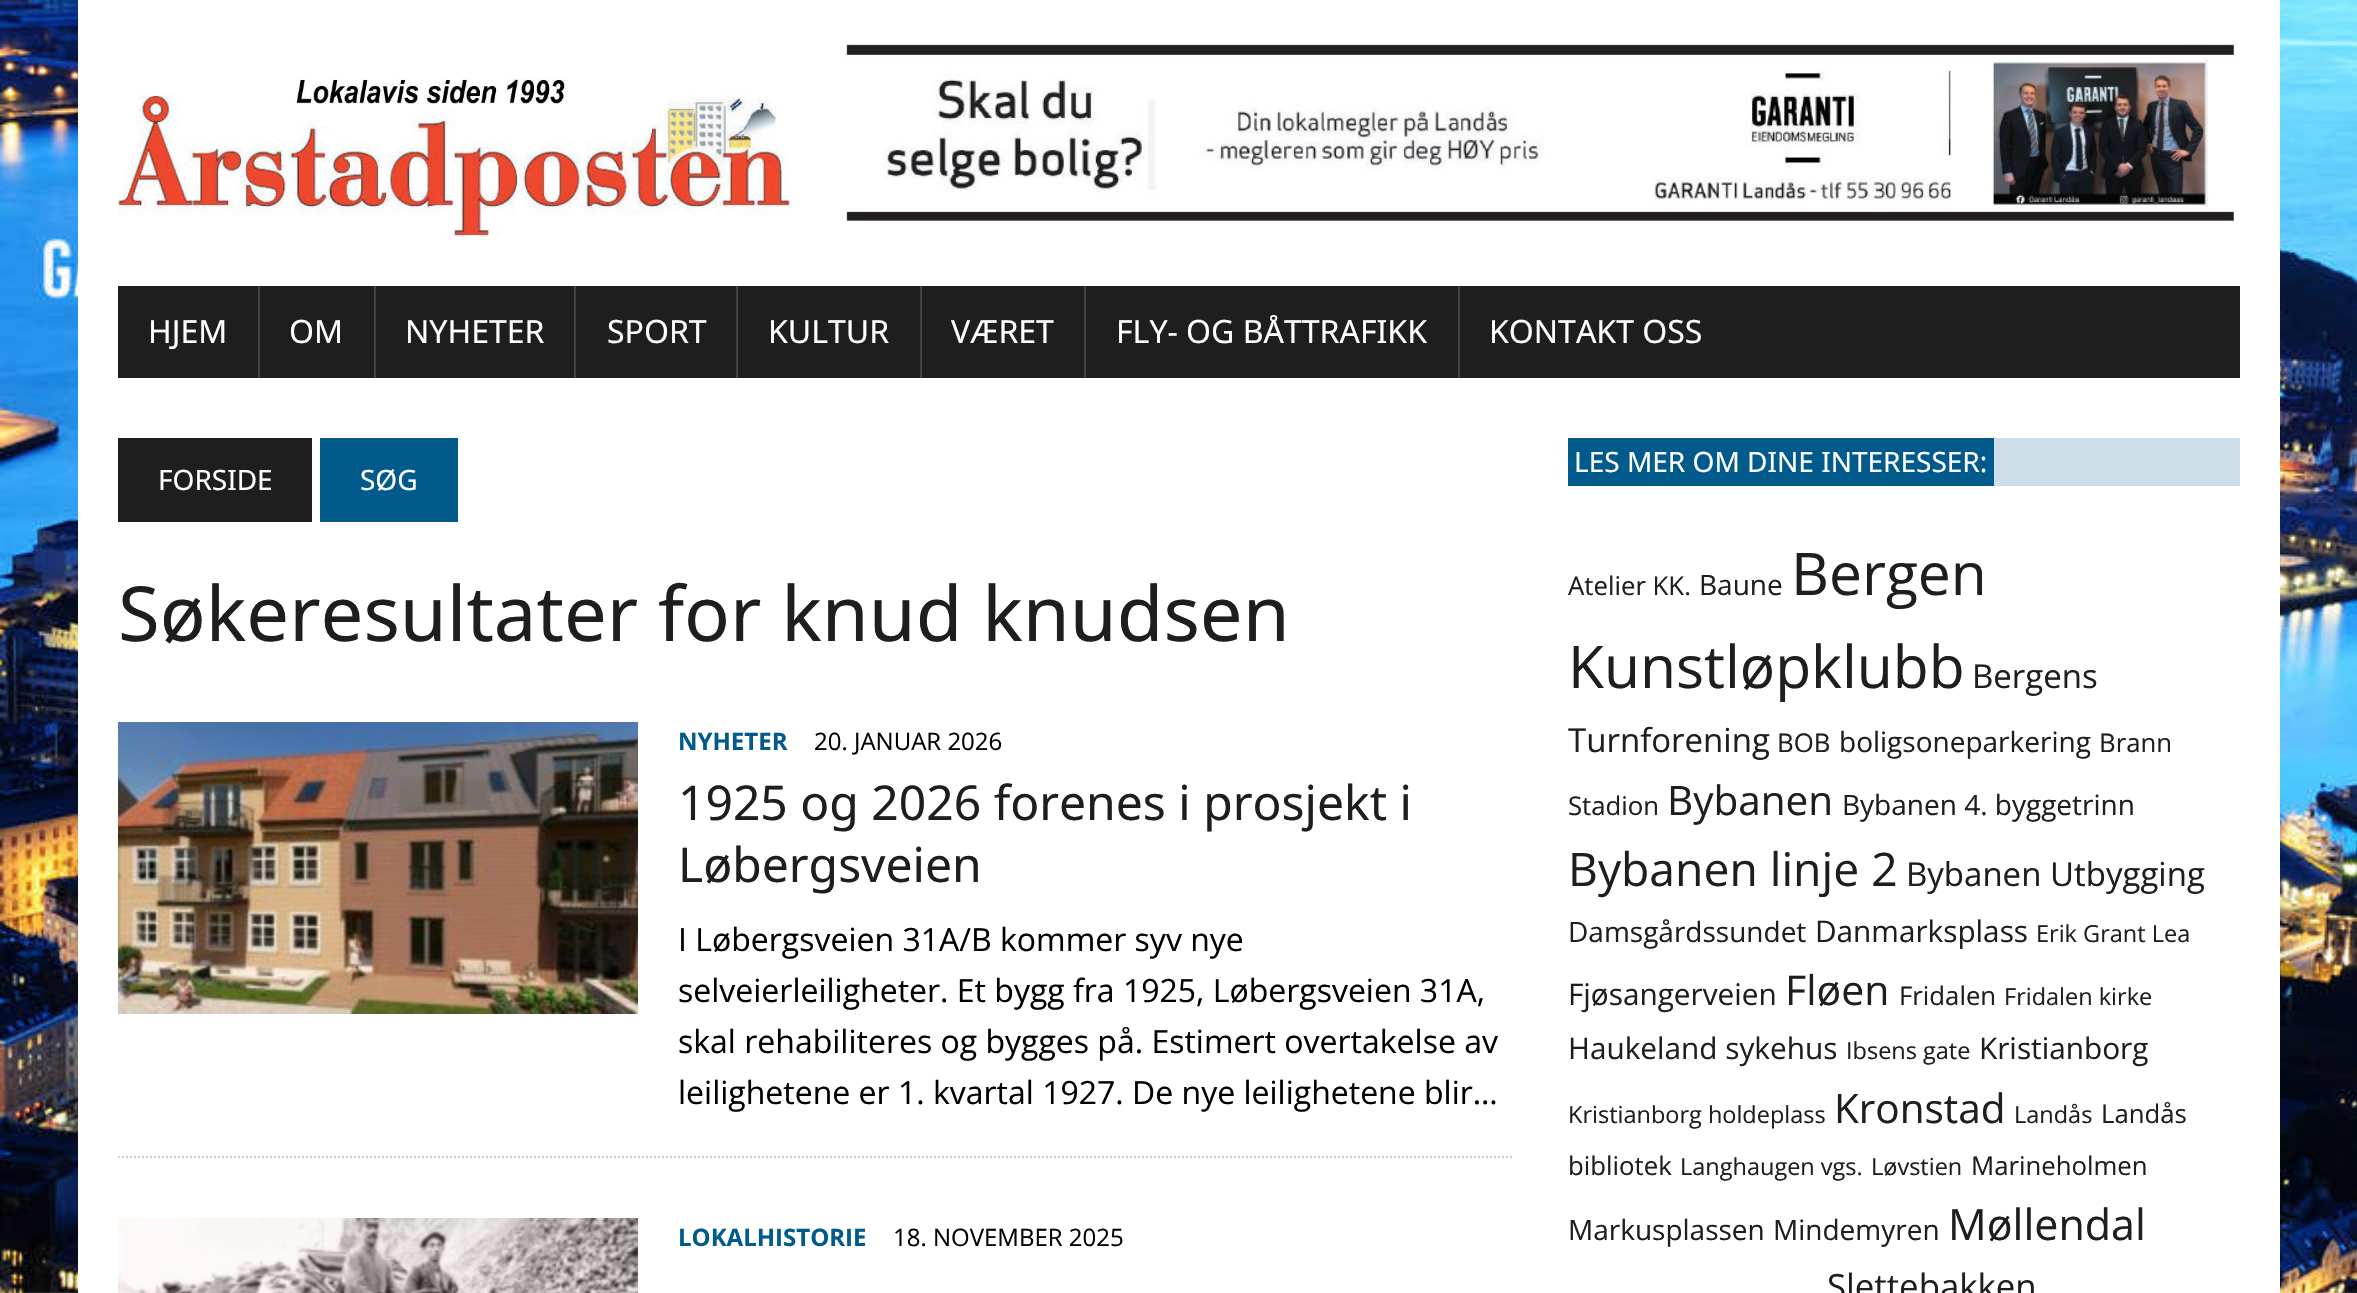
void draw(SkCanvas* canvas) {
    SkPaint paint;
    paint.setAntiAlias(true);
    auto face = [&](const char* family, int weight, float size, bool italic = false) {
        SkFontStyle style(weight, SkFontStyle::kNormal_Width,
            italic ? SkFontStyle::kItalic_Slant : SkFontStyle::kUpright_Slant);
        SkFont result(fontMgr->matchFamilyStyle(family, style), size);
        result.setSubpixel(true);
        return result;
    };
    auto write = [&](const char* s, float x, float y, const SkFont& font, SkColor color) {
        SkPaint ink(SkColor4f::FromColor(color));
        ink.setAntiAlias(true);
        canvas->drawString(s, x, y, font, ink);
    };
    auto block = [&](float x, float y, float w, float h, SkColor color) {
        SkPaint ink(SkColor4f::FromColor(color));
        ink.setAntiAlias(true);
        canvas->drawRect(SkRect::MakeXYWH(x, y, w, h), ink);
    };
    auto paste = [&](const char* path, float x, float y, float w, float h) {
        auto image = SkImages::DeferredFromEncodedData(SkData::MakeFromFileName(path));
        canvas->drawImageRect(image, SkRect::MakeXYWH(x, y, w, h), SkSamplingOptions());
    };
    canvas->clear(SK_ColorWHITE);
    paste("pic1.png", 0, 0, 2357, 1293);
    block(78, 0, 2202, 1293, SK_ColorWHITE);
    paste("pic2.png", 118, 77, 672, 164);
    paste("pic3.png", 842, 44, 1394, 177);
    block(118, 286, 2122, 92, SkColorSetRGB(31, 30, 30));
    auto kFont1 = face("Noto Sans", 400, 32);
    write("HJEM", 148, 343, kFont1, SK_ColorWHITE);
    block(258, 286, 2, 92, SkColorSetRGB(66, 66, 66));
    write("OM", 289, 343, kFont1, SK_ColorWHITE);
    block(374, 286, 2, 92, SkColorSetRGB(66, 66, 66));
    write("NYHETER", 405, 343, kFont1, SK_ColorWHITE);
    block(574, 286, 2, 92, SkColorSetRGB(66, 66, 66));
    write("SPORT", 607, 343, kFont1, SK_ColorWHITE);
    block(736, 286, 2, 92, SkColorSetRGB(66, 66, 66));
    write("KULTUR", 768, 343, kFont1, SK_ColorWHITE);
    block(920, 286, 2, 92, SkColorSetRGB(66, 66, 66));
    write("VÆRET", 951, 343, kFont1, SK_ColorWHITE);
    block(1084, 286, 2, 92, SkColorSetRGB(66, 66, 66));
    write("FLY- OG BÅTTRAFIKK", 1116, 343, kFont1, SK_ColorWHITE);
    block(1458, 286, 2, 92, SkColorSetRGB(66, 66, 66));
    write("KONTAKT OSS", 1489, 343, kFont1, SK_ColorWHITE);
    block(118, 438, 194, 84, SkColorSetRGB(31, 30, 30));
    auto kFont2 = face("Noto Sans", 400, 28);
    write("FORSIDE", 158, 490, kFont2, SK_ColorWHITE);
    block(320, 438, 138, 84, SkColorSetRGB(0, 90, 140));
    write("SØG", 360, 490, kFont2, SK_ColorWHITE);
    auto kFont3 = face("Noto Sans", 400, 76);
    write("Søkeresultater for knud knudsen", 118, 641, kFont3, SkColorSetRGB(31, 30, 30));
    paste("pic4.png", 118, 722, 520, 292);
    auto kFont4 = face("Open Sans", 700, 24);
    write("NYHETER", 678, 750, kFont4, SkColorSetRGB(0, 90, 140));
    auto kFont5 = face("Open Sans", 400, 24);
    write("20. JANUAR 2026", 814, 750, kFont5, SK_ColorBLACK);
    auto kFont6 = face("Noto Sans", 400, 48);
    write("1925 og 2026 forenes i prosjekt i", 678, 820, kFont6, SkColorSetRGB(31, 30, 30));
    write("Løbergsveien", 678, 882, kFont6, SkColorSetRGB(31, 30, 30));
    auto kFont7 = face("Open Sans", 400, 32);
    write("I Løbergsveien 31A/B kommer syv nye", 678, 951, kFont7, SK_ColorBLACK);
    write("selveierleiligheter. Et bygg fra 1925, Løbergsveien 31A,", 678, 1002, kFont7, SK_ColorBLACK);
    write("skal rehabiliteres og bygges på. Estimert overtakelse av", 678, 1053, kFont7, SK_ColorBLACK);
    write("leilighetene er 1. kvartal 1927. De nye leilighetene blir…", 678, 1104, kFont7, SK_ColorBLACK);
    paint.setStyle(SkPaint::kStroke_Style);
    paint.setStrokeWidth(2);
    paint.setColor(SkColorSetRGB(205, 205, 205));
    paint.setPathEffect(SkDashPathEffect::Make({{2, 2}}, 0));
    canvas->drawPath(SkPathBuilder().moveTo(118, 1157).lineTo(1514, 1157).detach(), paint);
    paint.setPathEffect(nullptr);
    paste("pic5.png", 118, 1218, 520, 75);
    write("LOKALHISTORIE", 678, 1246, kFont4, SkColorSetRGB(0, 90, 140));
    write("18. NOVEMBER 2025", 893, 1246, kFont5, SK_ColorBLACK);
    block(1994, 438, 246, 48, SkColorSetRGB(204, 222, 232));
    block(1568, 438, 426, 48, SkColorSetRGB(0, 90, 140));
    write("LES MER OM DINE INTERESSER:", 1574, 472, kFont2, SK_ColorWHITE);
    auto kFont8 = face("Open Sans", 400, 25.75f);
    write("Atelier KK.", 1568, 595, kFont8, SkColorSetRGB(31, 30, 30));
    auto kFont9 = face("Open Sans", 400, 28);
    write("Baune", 1699, 595, kFont9, SkColorSetRGB(31, 30, 30));
    auto kFont10 = face("Open Sans", 400, 58.75f);
    write("Bergen", 1791, 595, kFont10, SkColorSetRGB(31, 30, 30));
    write("Kunstløpklubb", 1568, 688, kFont10, SkColorSetRGB(31, 30, 30));
    auto kFont11 = face("Open Sans", 400, 33);
    write("Bergens", 1972, 688, kFont11, SkColorSetRGB(31, 30, 30));
    write("Turnforening", 1568, 752, kFont11, SkColorSetRGB(31, 30, 30));
    write("BOB", 1777, 752, kFont8, SkColorSetRGB(31, 30, 30));
    write("boligsoneparkering", 1839, 752, kFont9, SkColorSetRGB(31, 30, 30));
    write("Brann", 2099, 752, kFont8, SkColorSetRGB(31, 30, 30));
    write("Stadion", 1568, 815, kFont8, SkColorSetRGB(31, 30, 30));
    auto kFont12 = face("Open Sans", 400, 40.5f);
    write("Bybanen", 1667, 815, kFont12, SkColorSetRGB(31, 30, 30));
    write("Bybanen 4. byggetrinn", 1842, 815, kFont9, SkColorSetRGB(31, 30, 30));
    auto kFont13 = face("Open Sans", 400, 46.25f);
    write("Bybanen linje 2", 1568, 886, kFont13, SkColorSetRGB(31, 30, 30));
    write("Bybanen Utbygging", 1906, 886, kFont11, SkColorSetRGB(31, 30, 30));
    write("Damsgårdssundet", 1568, 942, kFont9, SkColorSetRGB(31, 30, 30));
    auto kFont14 = face("Open Sans", 400, 29.75f);
    write("Danmarksplass", 1815, 942, kFont14, SkColorSetRGB(31, 30, 30));
    auto kFont15 = face("Open Sans", 400, 23.5f);
    write("Erik Grant Lea", 2036, 942, kFont15, SkColorSetRGB(31, 30, 30));
    write("Fjøsangerveien", 1568, 1005, kFont14, SkColorSetRGB(31, 30, 30));
    auto kFont16 = face("Open Sans", 400, 41);
    write("Fløen", 1785, 1005, kFont16, SkColorSetRGB(31, 30, 30));
    write("Fridalen", 1899, 1005, kFont8, SkColorSetRGB(31, 30, 30));
    write("Fridalen kirke", 2004, 1005, kFont15, SkColorSetRGB(31, 30, 30));
    write("Haukeland sykehus", 1568, 1059, kFont14, SkColorSetRGB(31, 30, 30));
    write("Ibsens gate", 1846, 1059, kFont15, SkColorSetRGB(31, 30, 30));
    write("Kristianborg", 1979, 1059, kFont14, SkColorSetRGB(31, 30, 30));
    write("Kristianborg holdeplass", 1568, 1123, kFont15, SkColorSetRGB(31, 30, 30));
    write("Kronstad", 1834, 1123, kFont12, SkColorSetRGB(31, 30, 30));
    write("Landås", 2014, 1123, kFont15, SkColorSetRGB(31, 30, 30));
    write("Landås", 2101, 1123, kFont8, SkColorSetRGB(31, 30, 30));
    write("bibliotek", 1568, 1175, kFont8, SkColorSetRGB(31, 30, 30));
    write("Langhaugen vgs.", 1680, 1175, kFont15, SkColorSetRGB(31, 30, 30));
    write("Løvstien", 1871, 1175, kFont15, SkColorSetRGB(31, 30, 30));
    write("Marineholmen", 1971, 1175, kFont8, SkColorSetRGB(31, 30, 30));
    write("Markusplassen", 1568, 1240, kFont9, SkColorSetRGB(31, 30, 30));
    write("Mindemyren", 1773, 1240, kFont9, SkColorSetRGB(31, 30, 30));
    auto kFont17 = face("Open Sans", 400, 43);
    write("Møllendal", 1948, 1240, kFont17, SkColorSetRGB(31, 30, 30));
    auto kFont18 = face("Open Sans", 400, 34.75f);
    write("Slettebakken", 1827, 1299, kFont18, SkColorSetRGB(31, 30, 30));
}
